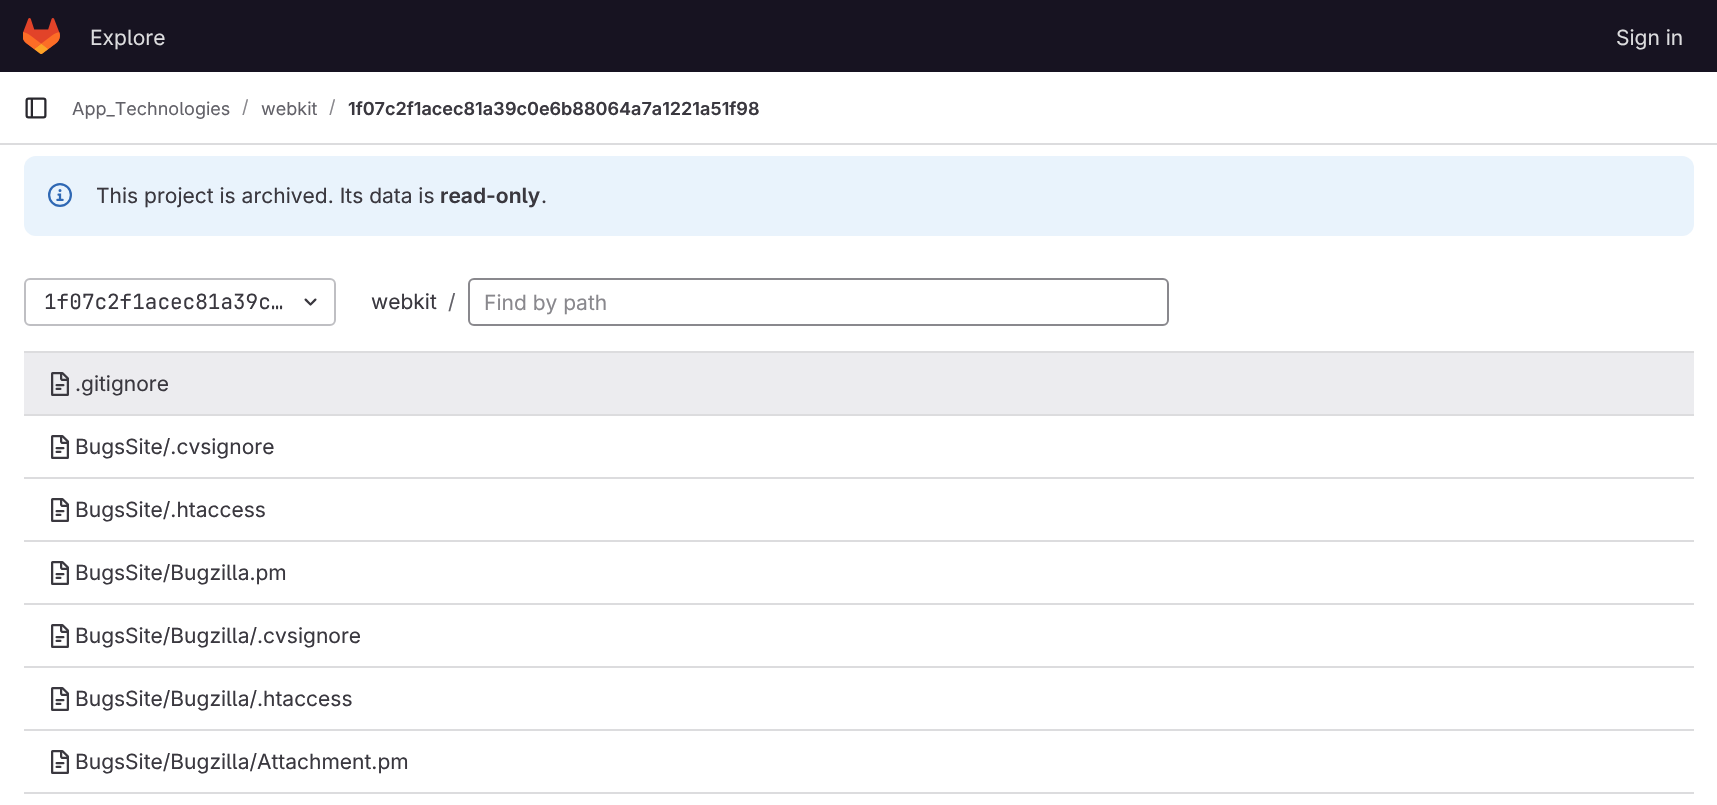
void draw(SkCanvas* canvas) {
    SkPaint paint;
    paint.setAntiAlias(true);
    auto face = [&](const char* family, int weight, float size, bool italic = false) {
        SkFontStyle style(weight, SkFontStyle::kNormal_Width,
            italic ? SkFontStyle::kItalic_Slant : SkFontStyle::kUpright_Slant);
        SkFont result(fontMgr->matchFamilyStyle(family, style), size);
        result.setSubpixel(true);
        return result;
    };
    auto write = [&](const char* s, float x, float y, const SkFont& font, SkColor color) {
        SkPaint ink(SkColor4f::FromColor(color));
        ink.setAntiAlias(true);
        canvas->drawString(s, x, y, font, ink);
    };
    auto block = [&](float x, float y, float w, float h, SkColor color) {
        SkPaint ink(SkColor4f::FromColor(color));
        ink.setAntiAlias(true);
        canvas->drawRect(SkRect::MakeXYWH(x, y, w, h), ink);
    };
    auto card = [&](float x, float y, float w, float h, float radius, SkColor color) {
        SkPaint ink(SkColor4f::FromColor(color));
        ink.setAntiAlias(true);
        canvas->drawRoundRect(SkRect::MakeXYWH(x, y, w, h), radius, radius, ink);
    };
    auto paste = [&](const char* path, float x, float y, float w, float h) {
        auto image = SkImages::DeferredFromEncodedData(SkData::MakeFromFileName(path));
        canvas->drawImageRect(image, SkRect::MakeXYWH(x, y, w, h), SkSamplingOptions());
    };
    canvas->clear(SK_ColorWHITE);
    block(0, 0, 1717, 72, SkColorSetRGB(23, 19, 33));
    paste("pic1.png", 23, 18, 37, 36);
    auto kFont1 = face("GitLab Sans", 400, 21);
    write("Explore", 90, 45, kFont1, SkColorSetRGB(220, 220, 222));
    write("Sign in", 1616, 45, kFont1, SkColorSetRGB(220, 220, 222));
    block(0, 143, 1717, 2, SkColorSetRGB(220, 220, 222));
    paste("pic2.png", 25, 97, 22, 22);
    auto kFont2 = face("GitLab Sans", 400, 18);
    write("App_Technologies", 72, 115, kFont2, SkColorSetRGB(98, 97, 104));
    write("/", 242, 113, kFont2, SkColorSetRGB(137, 136, 141));
    write("webkit", 261, 115, kFont2, SkColorSetRGB(98, 97, 104));
    write("/", 329, 113, kFont2, SkColorSetRGB(137, 136, 141));
    auto kFont3 = face("GitLab Sans", 600, 18);
    write("1f07c2f1acec81a39c0e6b88064a7a1221a51f98", 348, 115, kFont3, SkColorSetRGB(58, 56, 63));
    card(24, 156, 1670, 80, 12, SkColorSetRGB(233, 243, 252));
    paste("pic3.png", 48, 183, 24, 24);
    write("This project is archived. Its data is", 96, 203, kFont1, SkColorSetRGB(58, 56, 63));
    auto kFont4 = face("GitLab Sans", 600, 21);
    write("read-only", 440, 203, kFont4, SkColorSetRGB(58, 56, 63));
    write(".", 541, 203, kFont1, SkColorSetRGB(58, 56, 63));
    paint.setStyle(SkPaint::kStroke_Style);
    paint.setStrokeWidth(2);
    paint.setColor(SkColorSetRGB(191, 191, 195));
    canvas->drawRoundRect(SkRect::MakeXYWH(25, 279, 310, 46), 5, 5, paint);
    auto kFont5 = face("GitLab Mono", 400, 21);
    write("1f07c2f1acec81a39c…", 44, 309, kFont5, SkColorSetRGB(58, 56, 63));
    paste("pic4.png", 304, 298, 13, 8);
    write("webkit", 371, 309, kFont1, SkColorSetRGB(58, 56, 63));
    write("/", 448, 309, kFont1, SkColorSetRGB(98, 97, 104));
    paint.setColor(SkColorSetRGB(137, 136, 141));
    canvas->drawRoundRect(SkRect::MakeXYWH(469, 279, 699, 46), 5, 5, paint);
    write("Find by path", 484, 310, kFont1, SkColorSetRGB(137, 136, 141));
    block(24, 414, 1670, 2, SkColorSetRGB(220, 220, 222));
    block(24, 353, 1670, 61, SkColorSetRGB(236, 236, 239));
    block(24, 351, 1670, 2, SkColorSetRGB(220, 220, 222));
    paste("pic5.png", 51, 372, 18, 24);
    write(".gitignore", 75, 391, kFont1, SkColorSetRGB(58, 56, 63));
    block(24, 477, 1670, 2, SkColorSetRGB(220, 220, 222));
    paste("pic6.png", 51, 435, 18, 24);
    write("BugsSite/.cvsignore", 75, 454, kFont1, SkColorSetRGB(58, 56, 63));
    block(24, 540, 1670, 2, SkColorSetRGB(220, 220, 222));
    paste("pic7.png", 51, 498, 18, 24);
    write("BugsSite/.htaccess", 75, 517, kFont1, SkColorSetRGB(58, 56, 63));
    block(24, 603, 1670, 2, SkColorSetRGB(220, 220, 222));
    paste("pic8.png", 51, 561, 18, 24);
    write("BugsSite/Bugzilla.pm", 75, 580, kFont1, SkColorSetRGB(58, 56, 63));
    block(24, 666, 1670, 2, SkColorSetRGB(220, 220, 222));
    paste("pic8.png", 51, 624, 18, 24);
    write("BugsSite/Bugzilla/.cvsignore", 75, 643, kFont1, SkColorSetRGB(58, 56, 63));
    block(24, 729, 1670, 2, SkColorSetRGB(220, 220, 222));
    paste("pic8.png", 51, 687, 18, 24);
    write("BugsSite/Bugzilla/.htaccess", 75, 706, kFont1, SkColorSetRGB(58, 56, 63));
    block(24, 792, 1670, 2, SkColorSetRGB(220, 220, 222));
    paste("pic8.png", 51, 750, 18, 24);
    write("BugsSite/Bugzilla/Attachment.pm", 75, 769, kFont1, SkColorSetRGB(58, 56, 63));
}
